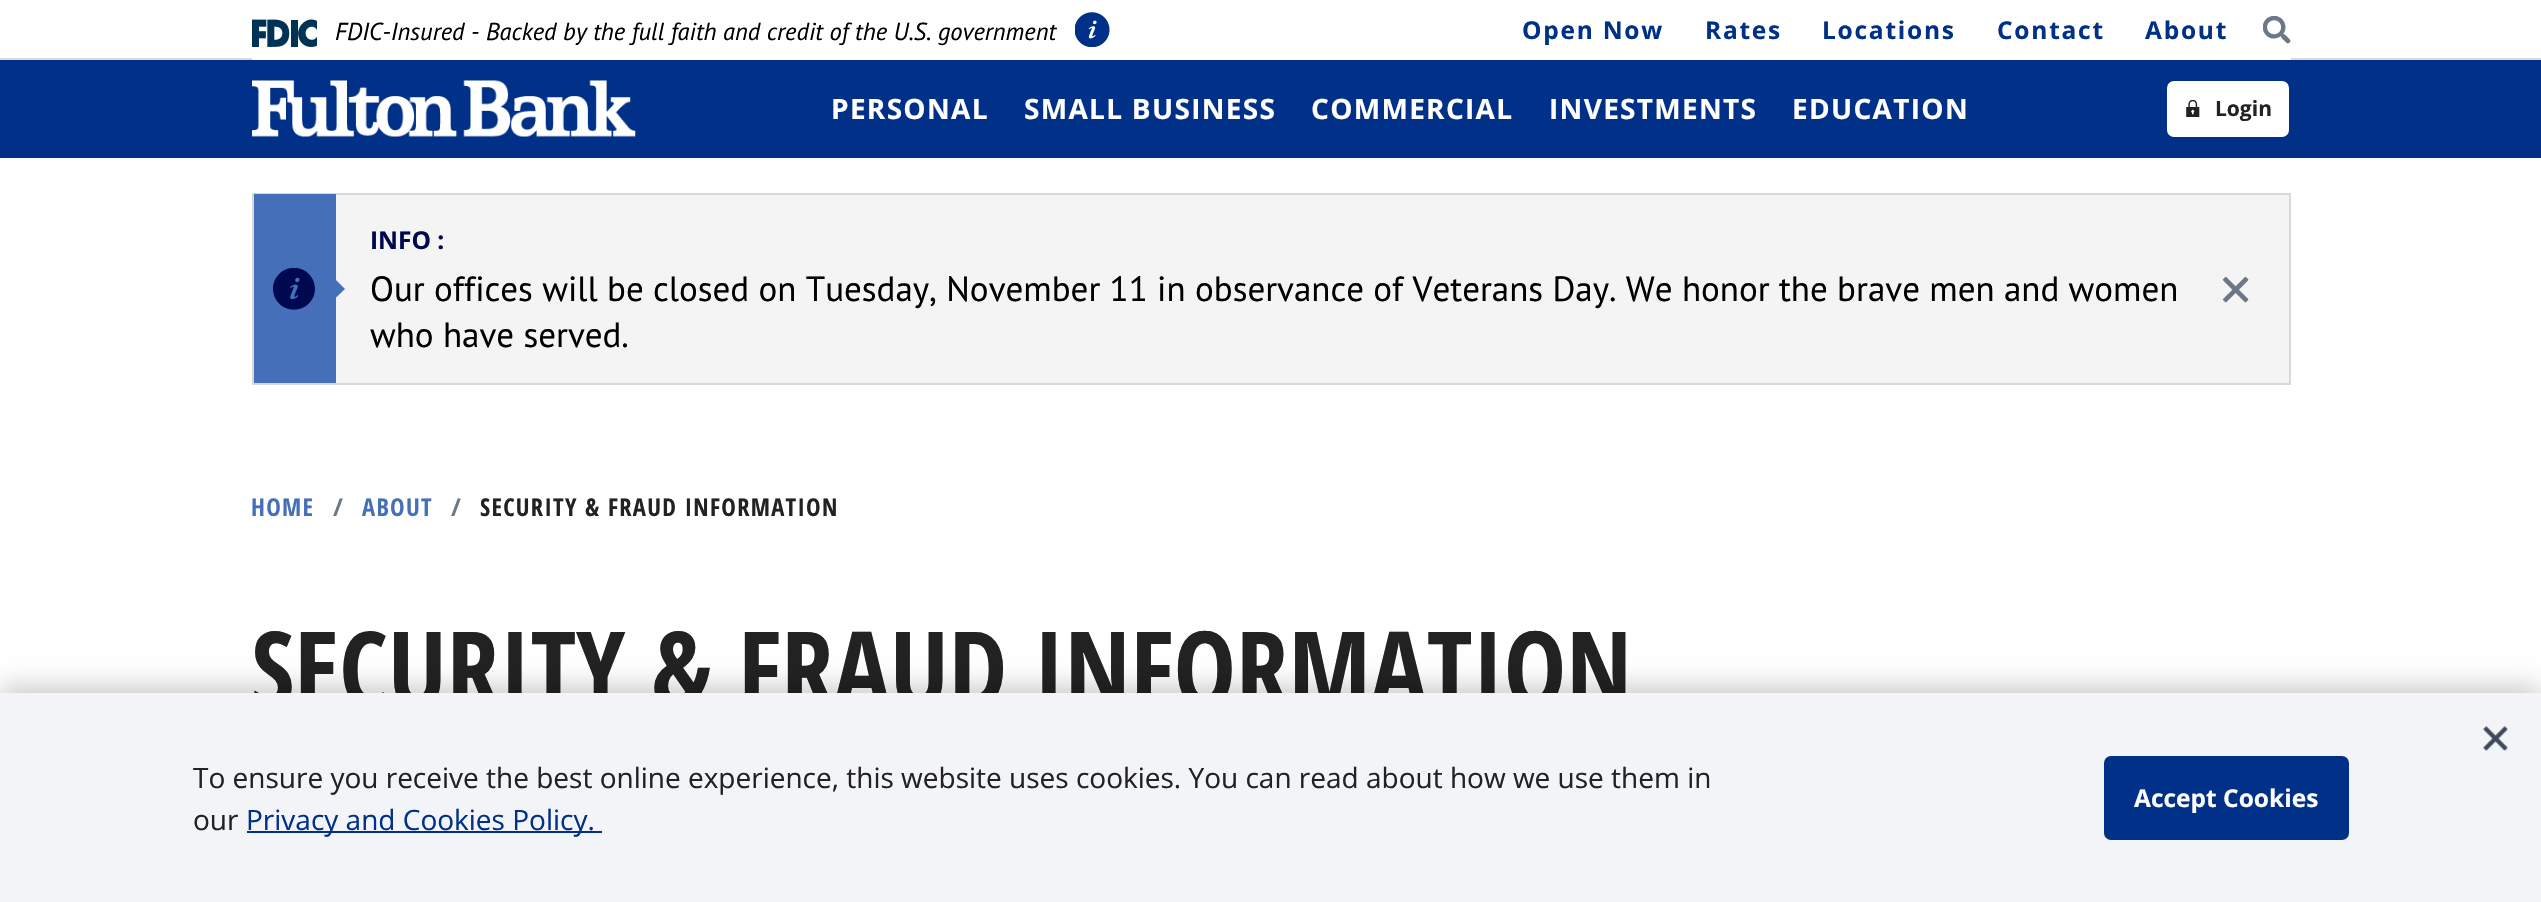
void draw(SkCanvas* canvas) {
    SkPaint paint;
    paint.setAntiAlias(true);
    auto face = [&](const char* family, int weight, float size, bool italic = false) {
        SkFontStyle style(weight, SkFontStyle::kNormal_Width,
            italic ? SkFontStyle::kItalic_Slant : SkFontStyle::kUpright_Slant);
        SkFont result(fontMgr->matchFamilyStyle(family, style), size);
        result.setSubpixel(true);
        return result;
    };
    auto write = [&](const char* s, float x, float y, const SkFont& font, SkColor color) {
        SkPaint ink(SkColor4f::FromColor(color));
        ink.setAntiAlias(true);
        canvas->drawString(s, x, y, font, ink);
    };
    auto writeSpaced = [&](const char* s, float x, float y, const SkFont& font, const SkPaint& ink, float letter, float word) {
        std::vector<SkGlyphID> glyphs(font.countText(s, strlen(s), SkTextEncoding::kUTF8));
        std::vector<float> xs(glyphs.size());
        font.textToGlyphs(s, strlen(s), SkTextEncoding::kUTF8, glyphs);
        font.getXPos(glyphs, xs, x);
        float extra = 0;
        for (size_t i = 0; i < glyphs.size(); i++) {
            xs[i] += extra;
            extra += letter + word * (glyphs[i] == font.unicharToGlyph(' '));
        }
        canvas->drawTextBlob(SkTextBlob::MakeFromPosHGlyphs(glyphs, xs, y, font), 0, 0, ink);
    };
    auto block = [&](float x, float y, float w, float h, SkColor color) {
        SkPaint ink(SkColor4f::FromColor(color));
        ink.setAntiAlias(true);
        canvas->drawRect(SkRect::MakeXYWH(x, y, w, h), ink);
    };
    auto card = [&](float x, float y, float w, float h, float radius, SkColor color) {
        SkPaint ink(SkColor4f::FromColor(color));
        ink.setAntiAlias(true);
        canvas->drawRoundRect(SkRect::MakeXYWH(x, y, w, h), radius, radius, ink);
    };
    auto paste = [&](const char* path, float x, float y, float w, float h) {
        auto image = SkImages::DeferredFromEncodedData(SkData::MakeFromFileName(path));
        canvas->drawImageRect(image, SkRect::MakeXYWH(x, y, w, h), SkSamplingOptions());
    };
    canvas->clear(SK_ColorWHITE);
    block(0, 58, 2541, 2, SkColorSetRGB(217, 217, 214));
    block(252, 58, 2039, 2, SK_ColorWHITE);
    paste("pic1.png", 252, 19, 65, 28);
    auto kFont1 = face("PT Sans", 400, 24.5f, true);
    write("FDIC-Insured - Backed by the full faith and credit of the U.S. government", 335, 40, kFont1, SK_ColorBLACK);
    paste("pic2.png", 1075, 12, 35, 35);
    auto kFont2 = face("Open Sans", 700, 24.5f);
    paint.setColor(SkColorSetRGB(0, 48, 135));
    writeSpaced("Open Now", 1522, 39, kFont2, paint, 1.75f, 0);
    writeSpaced("Rates", 1705, 39, kFont2, paint, 1.75f, 0);
    writeSpaced("Locations", 1822, 39, kFont2, paint, 1.75f, 0);
    writeSpaced("Contact", 1997, 39, kFont2, paint, 1.75f, 0);
    writeSpaced("About", 2145, 39, kFont2, paint, 1.75f, 0);
    paste("pic3.png", 2263, 16, 28, 28);
    block(0, 60, 2541, 98, SkColorSetRGB(0, 48, 135));
    paste("pic4.png", 252, 80, 384, 57);
    auto kFont3 = face("Open Sans", 700, 28);
    paint.setColor(SK_ColorWHITE);
    writeSpaced("PERSONAL", 831, 119, kFont3, paint, 1.3f, 0);
    writeSpaced("SMALL BUSINESS", 1024, 119, kFont3, paint, 1.3f, 0);
    writeSpaced("COMMERCIAL", 1311, 119, kFont3, paint, 1.3f, 0);
    writeSpaced("INVESTMENTS", 1549, 119, kFont3, paint, 1.3f, 0);
    writeSpaced("EDUCATION", 1792, 119, kFont3, paint, 1.3f, 0);
    card(2167, 81, 122, 56, 7, SK_ColorWHITE);
    paste("pic5.png", 2186, 100, 14, 17);
    auto kFont4 = face("Open Sans", 700, 21);
    write("Login", 2215, 116, kFont4, SkColorSetRGB(34, 34, 34));
    block(336, 195, 1953, 188, SkColorSetRGB(244, 244, 244));
    paint.setStyle(SkPaint::kStroke_Style);
    paint.setStrokeWidth(2);
    paint.setColor(SkColorSetRGB(217, 217, 214));
    canvas->drawRect(SkRect::MakeXYWH(253, 194, 2037, 190), paint);
    block(254, 194, 82, 189, SkColorSetRGB(69, 112, 185));
    paste("pic6.png", 273, 267, 42, 43);
    paint.setStyle(SkPaint::kFill_Style);
    paint.setColor(SkColorSetRGB(69, 112, 185));
    canvas->drawPath(SkPathBuilder().moveTo(335, 279).lineTo(345, 289).lineTo(335, 298.5f).lineTo(325, 289).close().detach(), paint);
    write("INFO :", 370, 249, kFont2, SkColorSetRGB(0, 9, 80));
    auto kFont5 = face("PT Sans", 400, 35);
    write("Our offices will be closed on Tuesday, November 11 in observance of Veterans Day. We honor the brave men and women", 370, 301, kFont5, SK_ColorBLACK);
    write("who have served.", 370, 347, kFont5, SK_ColorBLACK);
    paste("pic7.png", 2222, 276, 27, 27);
    auto kFont6 = face("Open Sans Condensed", 700, 24.5f);
    writeSpaced("HOME", 251, 516, kFont6, paint, 1.3f, 0);
    paint.setColor(SkColorSetRGB(108, 119, 136));
    writeSpaced("/", 333, 516, kFont6, paint, 1.3f, 0);
    paint.setColor(SkColorSetRGB(69, 112, 185));
    writeSpaced("ABOUT", 362, 516, kFont6, paint, 1.3f, 0);
    paint.setColor(SkColorSetRGB(108, 119, 136));
    writeSpaced("/", 451, 516, kFont6, paint, 1.3f, 0);
    paint.setColor(SkColorSetRGB(34, 34, 34));
    writeSpaced("SECURITY & FRAUD INFORMATION", 480, 516, kFont6, paint, 1.3f, 0);
    auto kFont7 = face("Open Sans Condensed", 700, 105);
    write("SECURITY & FRAUD INFORMATION", 251, 707, kFont7, SkColorSetRGB(34, 34, 34));
    paint.setColor(SkColorSetARGB(51, 0, 0, 0));
    paint.setMaskFilter(SkMaskFilter::MakeBlur(kNormal_SkBlurStyle, 12));
    canvas->drawRect(SkRect::MakeXYWH(0, 686, 2541, 210), paint);
    paint.setMaskFilter(nullptr);
    block(0, 693, 2541, 209, SkColorSetRGB(242, 244, 248));
    paste("pic8.png", 2483, 726, 25, 25);
    auto kFont8 = face("Open Sans", 400, 28);
    write("To ensure you receive the best online experience, this website uses cookies. You can read about how we use them in", 193, 788, kFont8, SkColorSetRGB(34, 34, 34));
    write("our", 193, 830, kFont8, SkColorSetRGB(34, 34, 34));
    block(247, 831, 355, 2, SkColorSetRGB(0, 48, 135));
    write("Privacy and Cookies Policy.", 246, 830, kFont8, SkColorSetRGB(0, 48, 135));
    paint.setColor(SkColorSetRGB(0, 48, 135));
    canvas->drawRoundRect(SkRect::MakeXYWH(2106, 758, 241, 80), 5, 5, paint);
    paint.setStyle(SkPaint::kStroke_Style);
    paint.setStrokeWidth(4);
    canvas->drawRoundRect(SkRect::MakeXYWH(2106, 758, 241, 80), 5, 5, paint);
    write("Accept Cookies", 2134, 807, kFont2, SK_ColorWHITE);
}
